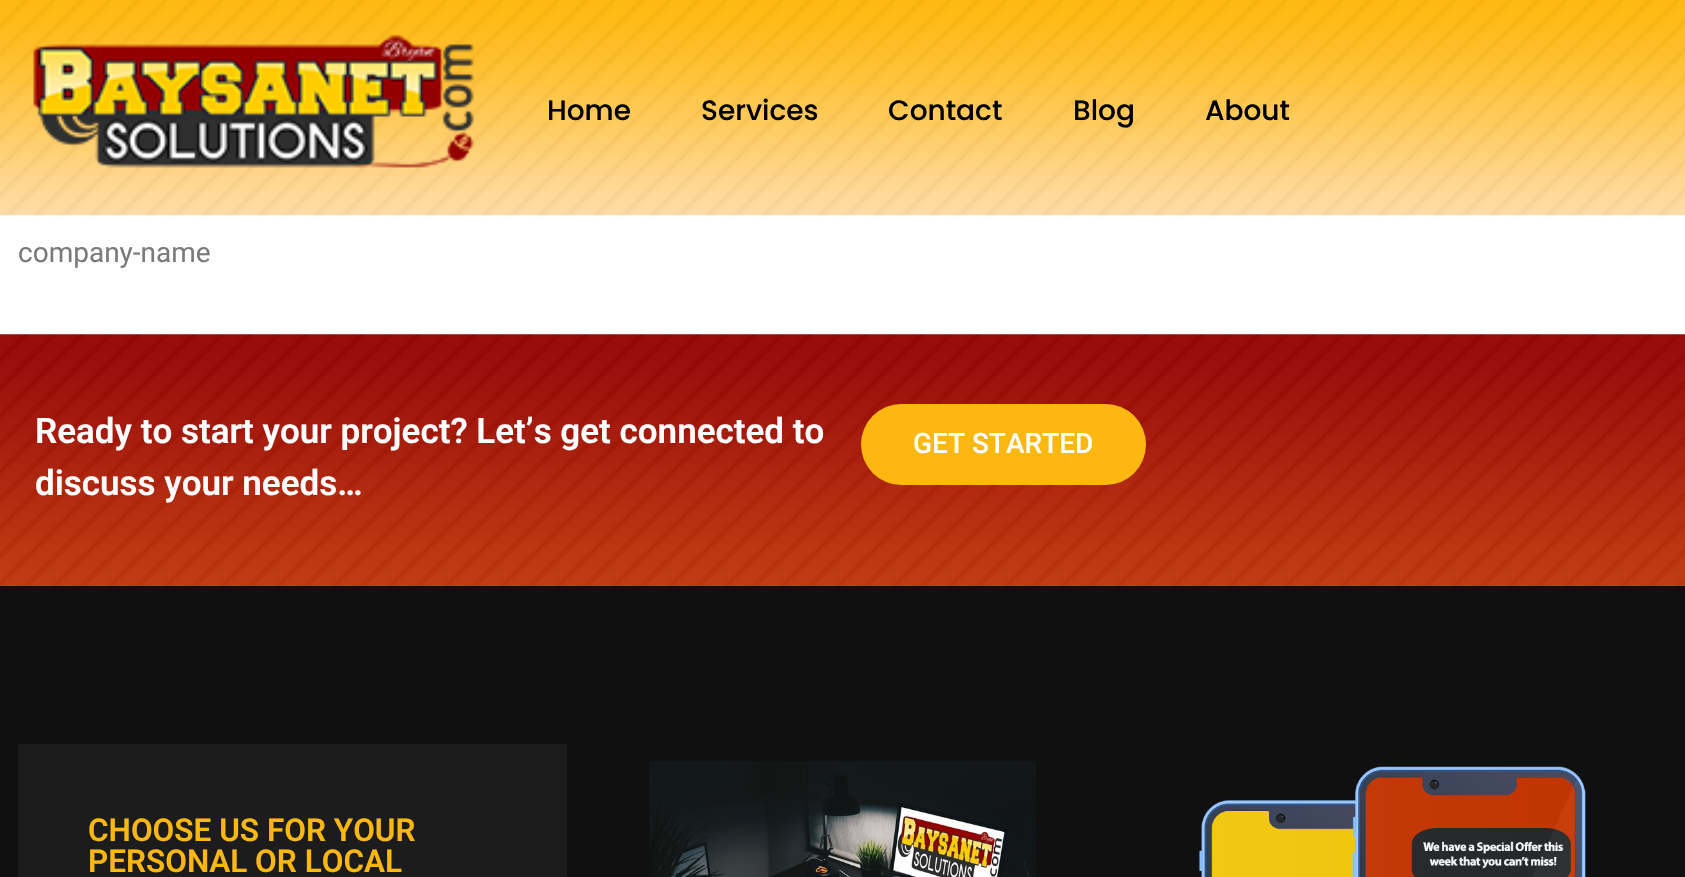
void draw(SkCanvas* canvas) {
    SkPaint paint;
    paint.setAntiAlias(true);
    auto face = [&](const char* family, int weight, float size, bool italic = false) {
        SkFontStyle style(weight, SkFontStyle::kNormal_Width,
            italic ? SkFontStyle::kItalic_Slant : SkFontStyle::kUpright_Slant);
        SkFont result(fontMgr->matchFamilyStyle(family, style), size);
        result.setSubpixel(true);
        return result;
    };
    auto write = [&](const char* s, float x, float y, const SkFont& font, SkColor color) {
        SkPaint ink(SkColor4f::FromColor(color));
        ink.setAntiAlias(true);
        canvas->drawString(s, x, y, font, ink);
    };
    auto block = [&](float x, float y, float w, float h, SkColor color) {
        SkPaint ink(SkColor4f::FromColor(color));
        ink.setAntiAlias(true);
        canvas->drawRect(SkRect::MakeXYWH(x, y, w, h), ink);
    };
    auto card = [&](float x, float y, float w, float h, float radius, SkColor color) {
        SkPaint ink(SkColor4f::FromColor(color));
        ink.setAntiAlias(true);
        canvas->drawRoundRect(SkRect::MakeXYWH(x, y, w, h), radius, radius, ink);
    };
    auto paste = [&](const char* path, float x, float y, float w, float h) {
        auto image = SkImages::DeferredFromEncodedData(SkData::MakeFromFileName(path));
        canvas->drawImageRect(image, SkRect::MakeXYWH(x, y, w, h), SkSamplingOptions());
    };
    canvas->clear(SK_ColorWHITE);
    paste("pic1.png", 0, 0, 1685, 216);
    paste("pic2.png", 33, 34, 441, 134);
    auto kFont1 = face("Poppins", 500, 28);
    write("Home", 547, 120, kFont1, SK_ColorBLACK);
    write("Services", 701, 120, kFont1, SK_ColorBLACK);
    write("Contact", 888, 120, kFont1, SK_ColorBLACK);
    write("Blog", 1073, 120, kFont1, SK_ColorBLACK);
    write("About", 1205, 120, kFont1, SK_ColorBLACK);
    auto kFont2 = face("Roboto", 400, 28);
    write("company-name", 18, 262, kFont2, SkColorSetRGB(122, 122, 122));
    paste("pic3.png", 0, 334, 1685, 252);
    auto kFont3 = face("Roboto", 600, 35);
    write("Ready to start your project? Let’s get connected to", 35, 443, kFont3, SK_ColorWHITE);
    write("discuss your needs…", 35, 495, kFont3, SK_ColorWHITE);
    card(861, 404, 285, 81, 40.5f, SkColorSetRGB(253, 183, 17));
    auto kFont4 = face("Roboto", 500, 28);
    write("GET STARTED", 913, 453, kFont4, SK_ColorWHITE);
    block(0, 586, 1685, 291, SkColorSetRGB(16, 16, 16));
    block(18, 744, 549, 133, SkColorSetRGB(28, 28, 28));
    auto kFont5 = face("Roboto", 600, 31.5f);
    write("CHOOSE US FOR YOUR", 88, 841, kFont5, SkColorSetRGB(253, 183, 17));
    write("PERSONAL OR LOCAL", 88, 872, kFont5, SkColorSetRGB(253, 183, 17));
    paste("pic4.png", 649, 761, 387, 116);
    paste("pic5.png", 1198, 766, 388, 111);
}
